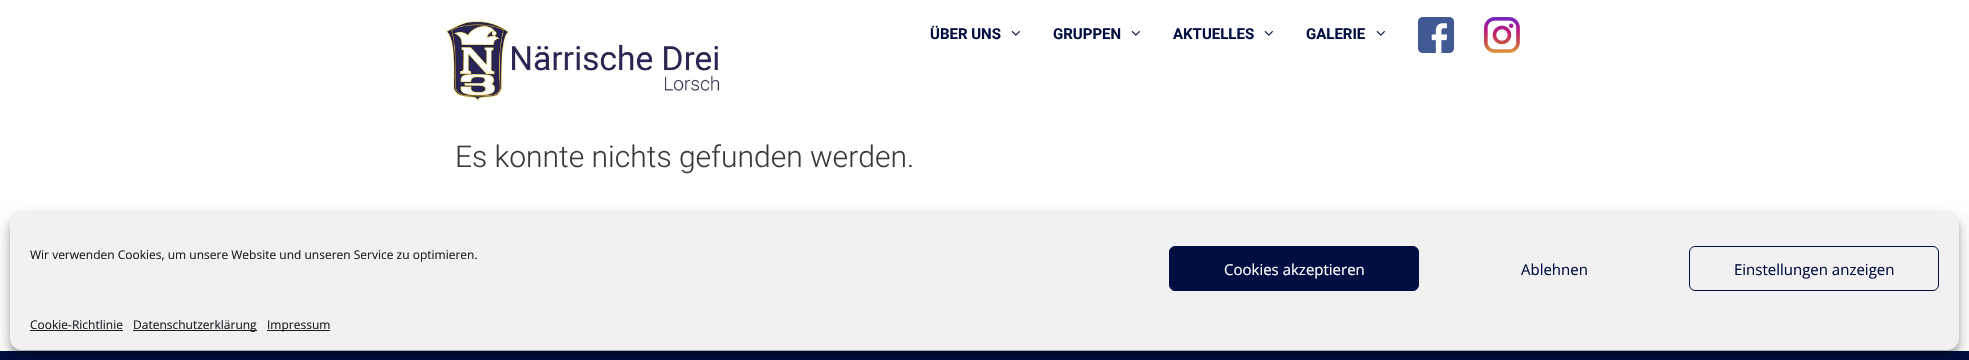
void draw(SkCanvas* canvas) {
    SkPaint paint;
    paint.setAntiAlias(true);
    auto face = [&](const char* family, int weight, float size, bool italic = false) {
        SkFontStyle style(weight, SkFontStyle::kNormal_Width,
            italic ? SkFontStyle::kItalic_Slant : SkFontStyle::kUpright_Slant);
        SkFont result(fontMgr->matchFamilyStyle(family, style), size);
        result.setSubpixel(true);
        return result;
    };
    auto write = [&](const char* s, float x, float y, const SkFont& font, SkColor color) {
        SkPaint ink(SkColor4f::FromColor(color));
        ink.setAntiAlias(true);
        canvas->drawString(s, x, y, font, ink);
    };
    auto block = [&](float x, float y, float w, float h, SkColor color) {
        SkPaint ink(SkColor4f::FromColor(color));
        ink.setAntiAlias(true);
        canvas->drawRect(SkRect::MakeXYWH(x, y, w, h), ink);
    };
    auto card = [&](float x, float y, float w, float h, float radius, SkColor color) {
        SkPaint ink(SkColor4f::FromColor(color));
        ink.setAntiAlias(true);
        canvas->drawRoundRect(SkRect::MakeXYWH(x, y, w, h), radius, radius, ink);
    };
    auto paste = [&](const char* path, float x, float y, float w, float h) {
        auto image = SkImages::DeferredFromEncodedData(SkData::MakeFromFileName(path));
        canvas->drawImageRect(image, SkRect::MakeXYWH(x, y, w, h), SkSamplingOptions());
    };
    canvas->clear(SK_ColorWHITE);
    paste("pic1.png", 444, 19, 278, 82);
    auto kFont1 = face("Roboto", 700, 15);
    write("ÜBER UNS", 930, 39, kFont1, SkColorSetRGB(0, 14, 66));
    paste("pic2.png", 1011, 31, 9, 5);
    write("GRUPPEN", 1053, 39, kFont1, SkColorSetRGB(0, 14, 66));
    paste("pic2.png", 1131, 31, 9, 5);
    write("AKTUELLES", 1173, 39, kFont1, SkColorSetRGB(0, 14, 66));
    paste("pic2.png", 1264, 31, 9, 5);
    write("GALERIE", 1306, 39, kFont1, SkColorSetRGB(0, 14, 66));
    paste("pic2.png", 1376, 31, 9, 5);
    paste("pic3.png", 1418, 17, 36, 36);
    paste("pic4.png", 1484, 17, 36, 36);
    auto kFont2 = face("Roboto", 300, 30);
    write("Es konnte nichts gefunden werden.", 455, 167, kFont2, SkColorSetRGB(58, 58, 58));
    block(0, 351, 1969, 9, SkColorSetRGB(0, 14, 66));
    paint.setColor(SkColorSetARGB(59, 0, 0, 0));
    paint.setMaskFilter(SkMaskFilter::MakeBlur(kNormal_SkBlurStyle, 3));
    canvas->drawRoundRect(SkRect::MakeXYWH(10, 217, 1949, 139), 12, 12, paint);
    paint.setMaskFilter(nullptr);
    paint.setColor(SkColorSetARGB(48, 0, 0, 0));
    paint.setMaskFilter(SkMaskFilter::MakeBlur(kNormal_SkBlurStyle, 10));
    canvas->drawRoundRect(SkRect::MakeXYWH(10, 221, 1949, 139), 12, 12, paint);
    paint.setMaskFilter(nullptr);
    card(10, 211, 1949, 139, 12, SkColorSetRGB(241, 241, 241));
    auto kFont3 = face("Open Sans", 400, 12);
    write("Wir verwenden Cookies, um unsere Website und unseren Service zu optimieren.", 30, 259, kFont3, SkColorSetRGB(25, 30, 35));
    paint.setColor(SkColorSetRGB(0, 14, 66));
    canvas->drawRoundRect(SkRect::MakeXYWH(1169.5f, 246.5f, 249, 44), 5.5f, 5.5f, paint);
    paint.setStyle(SkPaint::kStroke_Style);
    paint.setStrokeWidth(1);
    canvas->drawRoundRect(SkRect::MakeXYWH(1169.5f, 246.5f, 249, 44), 5.5f, 5.5f, paint);
    auto kFont4 = face("Open Sans", 400, 15);
    write("Cookies akzeptieren", 1224, 275, kFont4, SK_ColorWHITE);
    write("Ablehnen", 1521, 275, kFont4, SkColorSetRGB(0, 14, 66));
    canvas->drawRoundRect(SkRect::MakeXYWH(1689.5f, 246.5f, 249, 44), 5.5f, 5.5f, paint);
    write("Einstellungen anzeigen", 1734, 275, kFont4, SkColorSetRGB(0, 14, 66));
    write("Cookie-Richtlinie", 30, 329, kFont3, SkColorSetRGB(25, 30, 35));
    block(30, 330, 93, 1, SkColorSetRGB(25, 30, 35));
    block(133, 330, 124, 1, SkColorSetRGB(25, 30, 35));
    write("Datenschutzerklärung", 133, 329, kFont3, SkColorSetRGB(25, 30, 35));
    block(267, 330, 63, 1, SkColorSetRGB(25, 30, 35));
    write("Impressum", 267, 329, kFont3, SkColorSetRGB(25, 30, 35));
}
